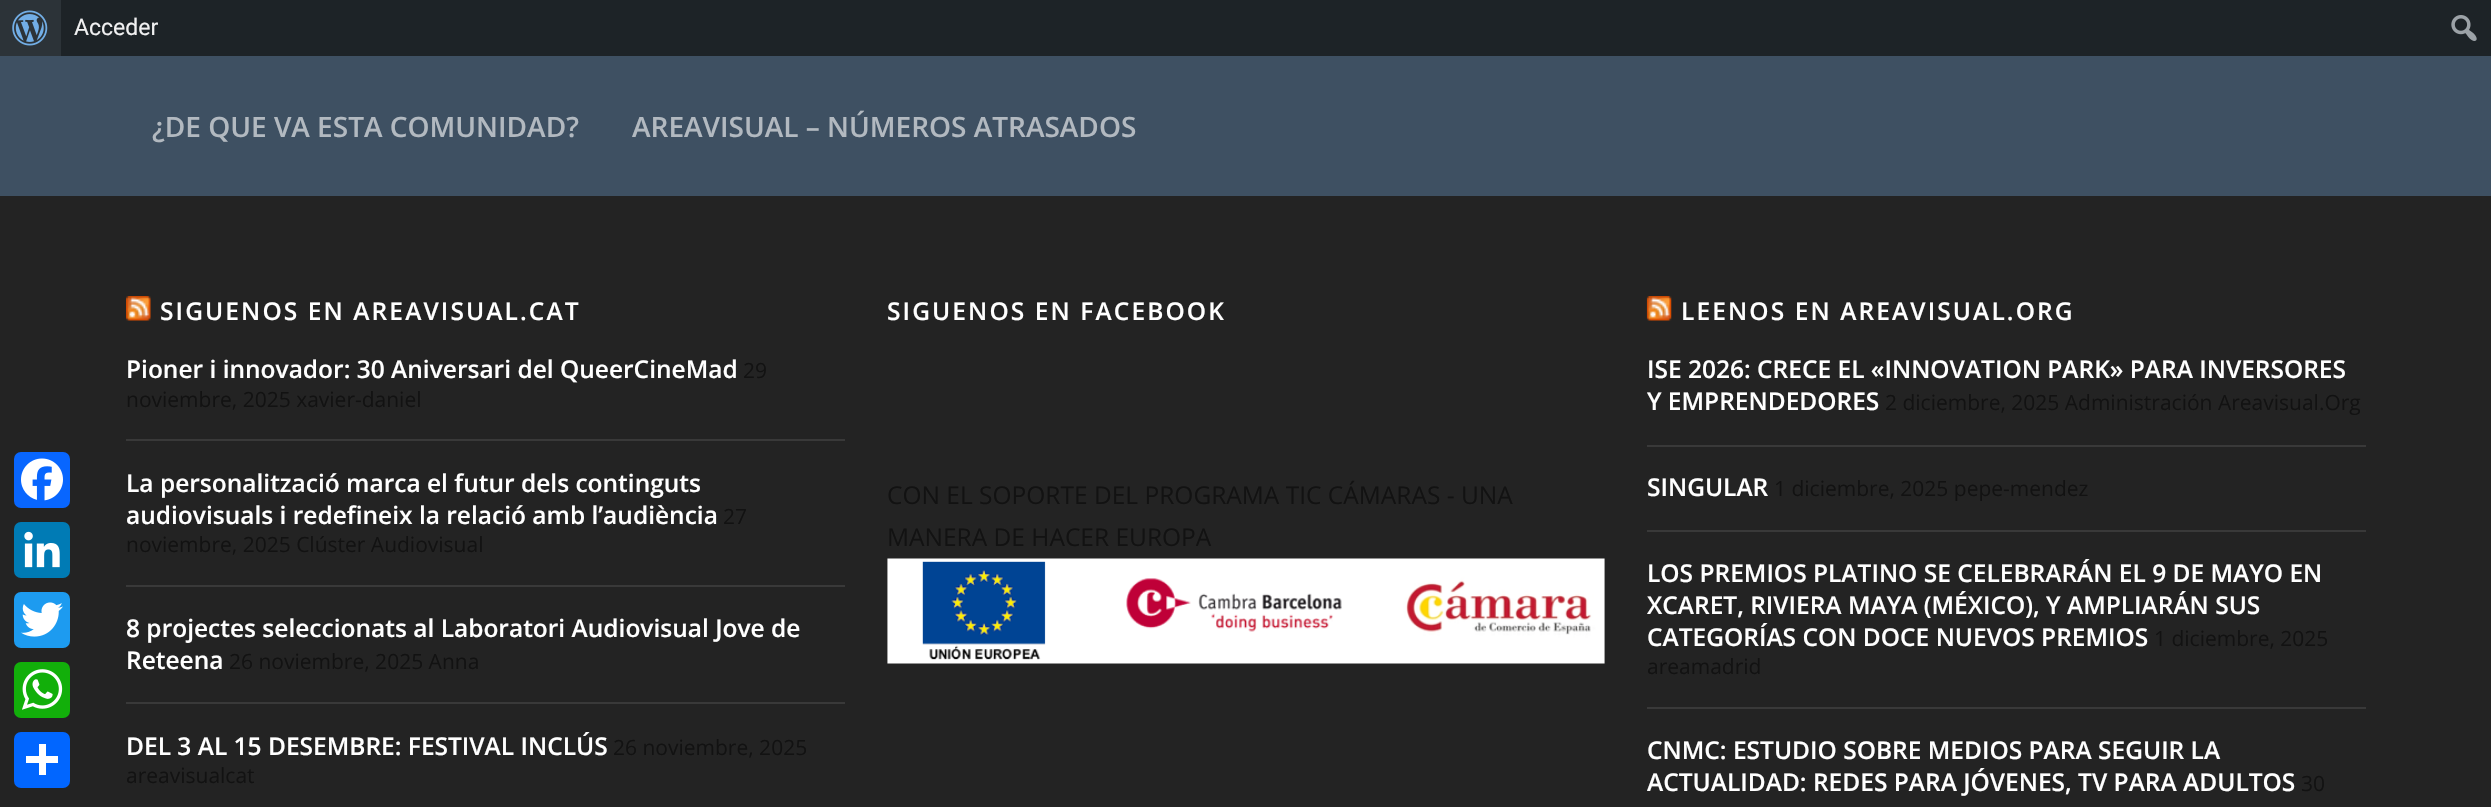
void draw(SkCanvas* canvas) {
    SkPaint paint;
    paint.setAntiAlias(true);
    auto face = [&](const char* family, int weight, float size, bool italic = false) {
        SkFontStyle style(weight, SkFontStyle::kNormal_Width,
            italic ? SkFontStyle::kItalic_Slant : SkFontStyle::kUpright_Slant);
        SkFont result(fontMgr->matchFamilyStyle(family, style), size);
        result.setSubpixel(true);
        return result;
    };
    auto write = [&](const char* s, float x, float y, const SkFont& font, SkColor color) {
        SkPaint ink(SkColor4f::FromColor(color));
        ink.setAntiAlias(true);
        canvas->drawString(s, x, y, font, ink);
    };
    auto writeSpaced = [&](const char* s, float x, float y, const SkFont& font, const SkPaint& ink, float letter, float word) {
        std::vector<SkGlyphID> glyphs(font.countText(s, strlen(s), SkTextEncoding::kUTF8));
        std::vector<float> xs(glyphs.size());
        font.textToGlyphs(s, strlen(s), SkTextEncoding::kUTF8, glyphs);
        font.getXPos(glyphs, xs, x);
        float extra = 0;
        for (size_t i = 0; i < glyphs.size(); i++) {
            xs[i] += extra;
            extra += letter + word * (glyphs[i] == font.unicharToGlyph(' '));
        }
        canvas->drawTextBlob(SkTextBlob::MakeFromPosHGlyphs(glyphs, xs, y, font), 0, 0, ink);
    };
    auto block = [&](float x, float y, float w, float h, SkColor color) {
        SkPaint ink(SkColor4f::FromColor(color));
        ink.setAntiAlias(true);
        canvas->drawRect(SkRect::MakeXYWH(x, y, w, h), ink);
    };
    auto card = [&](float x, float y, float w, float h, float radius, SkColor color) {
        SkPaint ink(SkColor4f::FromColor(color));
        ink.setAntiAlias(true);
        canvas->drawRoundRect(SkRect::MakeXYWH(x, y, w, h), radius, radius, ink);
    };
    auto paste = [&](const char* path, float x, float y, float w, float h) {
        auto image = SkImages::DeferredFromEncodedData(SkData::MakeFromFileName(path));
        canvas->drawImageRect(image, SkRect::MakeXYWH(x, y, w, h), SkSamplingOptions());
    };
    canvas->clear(SkColorSetRGB(35, 35, 35));
    block(61, 0, 2430, 56, SkColorSetRGB(29, 35, 39));
    block(0, 0, 61, 56, SkColorSetRGB(44, 51, 56));
    paste("pic1.png", 12, 10, 36, 36);
    auto kFont1 = face("Roboto", 400, 23);
    write("Acceder", 74, 35, kFont1, SkColorSetRGB(240, 240, 241));
    paste("pic2.png", 2451, 15, 26, 26);
    card(14, 452, 56, 56, 7, SkColorSetRGB(8, 102, 255));
    paste("pic3.png", 21, 458, 42, 43);
    card(14, 522, 56, 56, 7, SkColorSetRGB(0, 123, 181));
    paste("pic4.png", 24, 531, 36, 37);
    card(14, 592, 56, 56, 7, SkColorSetRGB(29, 155, 240));
    paste("pic5.png", 21, 602, 42, 35);
    card(14, 662, 56, 56, 7, SkColorSetRGB(18, 175, 10));
    paste("pic6.png", 22, 669, 41, 41);
    card(14, 732, 56, 56, 7, SkColorSetRGB(1, 102, 255));
    block(39, 744, 7, 31, SK_ColorWHITE);
    block(26, 756, 32, 7, SK_ColorWHITE);
    block(0, 56, 2491, 140, SkColorSetRGB(62, 80, 98));
    auto kFont2 = face("Open Sans", 600, 28);
    write("¿DE QUE VA ESTA COMUNIDAD?", 152, 137, kFont2, SkColorSetRGB(178, 185, 192));
    write("AREAVISUAL – NÚMEROS ATRASADOS", 632, 137, kFont2, SkColorSetRGB(178, 185, 192));
    paste("pic7.png", 126, 296, 25, 25);
    auto kFont3 = face("Open Sans", 600, 24.5f);
    paint.setColor(SK_ColorWHITE);
    writeSpaced("SIGUENOS EN AREAVISUAL.CAT", 160, 320, kFont3, paint, 2.1f, 0);
    block(126, 439, 719, 2, SkColorSetRGB(57, 57, 57));
    write("Pioner i innovador: 30 Aniversari del QueerCineMad", 126, 378, kFont3, SK_ColorWHITE);
    auto kFont4 = face("Open Sans", 400, 21);
    write("29", 743, 378, kFont4, SkColorSetRGB(18, 18, 18));
    write("noviembre, 2025 xavier-daniel", 126, 407, kFont4, SkColorSetRGB(18, 18, 18));
    block(126, 585, 719, 2, SkColorSetRGB(57, 57, 57));
    write("La personalització marca el futur dels continguts", 126, 492, kFont3, SK_ColorWHITE);
    write("audiovisuals i redefineix la relació amb l’audiència", 126, 524, kFont3, SK_ColorWHITE);
    write("27", 723, 524, kFont4, SkColorSetRGB(18, 18, 18));
    write("noviembre, 2025 Clúster Audiovisual", 126, 552, kFont4, SkColorSetRGB(18, 18, 18));
    block(126, 702, 719, 2, SkColorSetRGB(57, 57, 57));
    write("8 projectes seleccionats al Laboratori Audiovisual Jove de", 126, 637, kFont3, SK_ColorWHITE);
    write("Reteena", 126, 669, kFont3, SK_ColorWHITE);
    write("26 noviembre, 2025 Anna", 229, 669, kFont4, SkColorSetRGB(18, 18, 18));
    write("DEL 3 AL 15 DESEMBRE: FESTIVAL INCLÚS", 126, 755, kFont3, SK_ColorWHITE);
    write("26 noviembre, 2025", 613, 755, kFont4, SkColorSetRGB(18, 18, 18));
    write("areavisualcat", 126, 783, kFont4, SkColorSetRGB(18, 18, 18));
    writeSpaced("SIGUENOS EN FACEBOOK", 887, 320, kFont3, paint, 2.1f, 0);
    auto kFont5 = face("Open Sans", 400, 24.5f);
    write("CON EL SOPORTE DEL PROGRAMA TIC CÁMARAS - UNA", 887, 504, kFont5, SkColorSetRGB(18, 18, 18));
    write("MANERA DE HACER EUROPA", 887, 546, kFont5, SkColorSetRGB(18, 18, 18));
    paste("pic8.png", 887, 558, 718, 106);
    paste("pic9.png", 1646, 296, 26, 25);
    writeSpaced("LEENOS EN AREAVISUAL.ORG", 1681, 320, kFont3, paint, 2.1f, 0);
    block(1647, 445, 719, 2, SkColorSetRGB(57, 57, 57));
    write("ISE 2026: CRECE EL «INNOVATION PARK» PARA INVERSORES", 1647, 378, kFont3, SK_ColorWHITE);
    write("Y EMPRENDEDORES", 1647, 410, kFont3, SK_ColorWHITE);
    write("2 diciembre, 2025 Administración Areavisual.Org", 1885, 410, kFont4, SkColorSetRGB(18, 18, 18));
    block(1647, 530, 719, 2, SkColorSetRGB(57, 57, 57));
    write("SINGULAR", 1647, 496, kFont3, SK_ColorWHITE);
    write("1 diciembre, 2025 pepe-mendez", 1774, 496, kFont4, SkColorSetRGB(18, 18, 18));
    block(1647, 707, 719, 2, SkColorSetRGB(57, 57, 57));
    write("LOS PREMIOS PLATINO SE CELEBRARÁN EL 9 DE MAYO EN", 1647, 582, kFont3, SK_ColorWHITE);
    write("XCARET, RIVIERA MAYA (MÉXICO), Y AMPLIARÁN SUS", 1647, 614, kFont3, SK_ColorWHITE);
    write("CATEGORÍAS CON DOCE NUEVOS PREMIOS", 1647, 646, kFont3, SK_ColorWHITE);
    write("1 diciembre, 2025", 2154, 646, kFont4, SkColorSetRGB(18, 18, 18));
    write("areamadrid", 1647, 674, kFont4, SkColorSetRGB(18, 18, 18));
    write("CNMC: ESTUDIO SOBRE MEDIOS PARA SEGUIR LA", 1647, 759, kFont3, SK_ColorWHITE);
    write("ACTUALIDAD: REDES PARA JÓVENES, TV PARA ADULTOS", 1647, 791, kFont3, SK_ColorWHITE);
    write("30", 2301, 791, kFont4, SkColorSetRGB(18, 18, 18));
}
